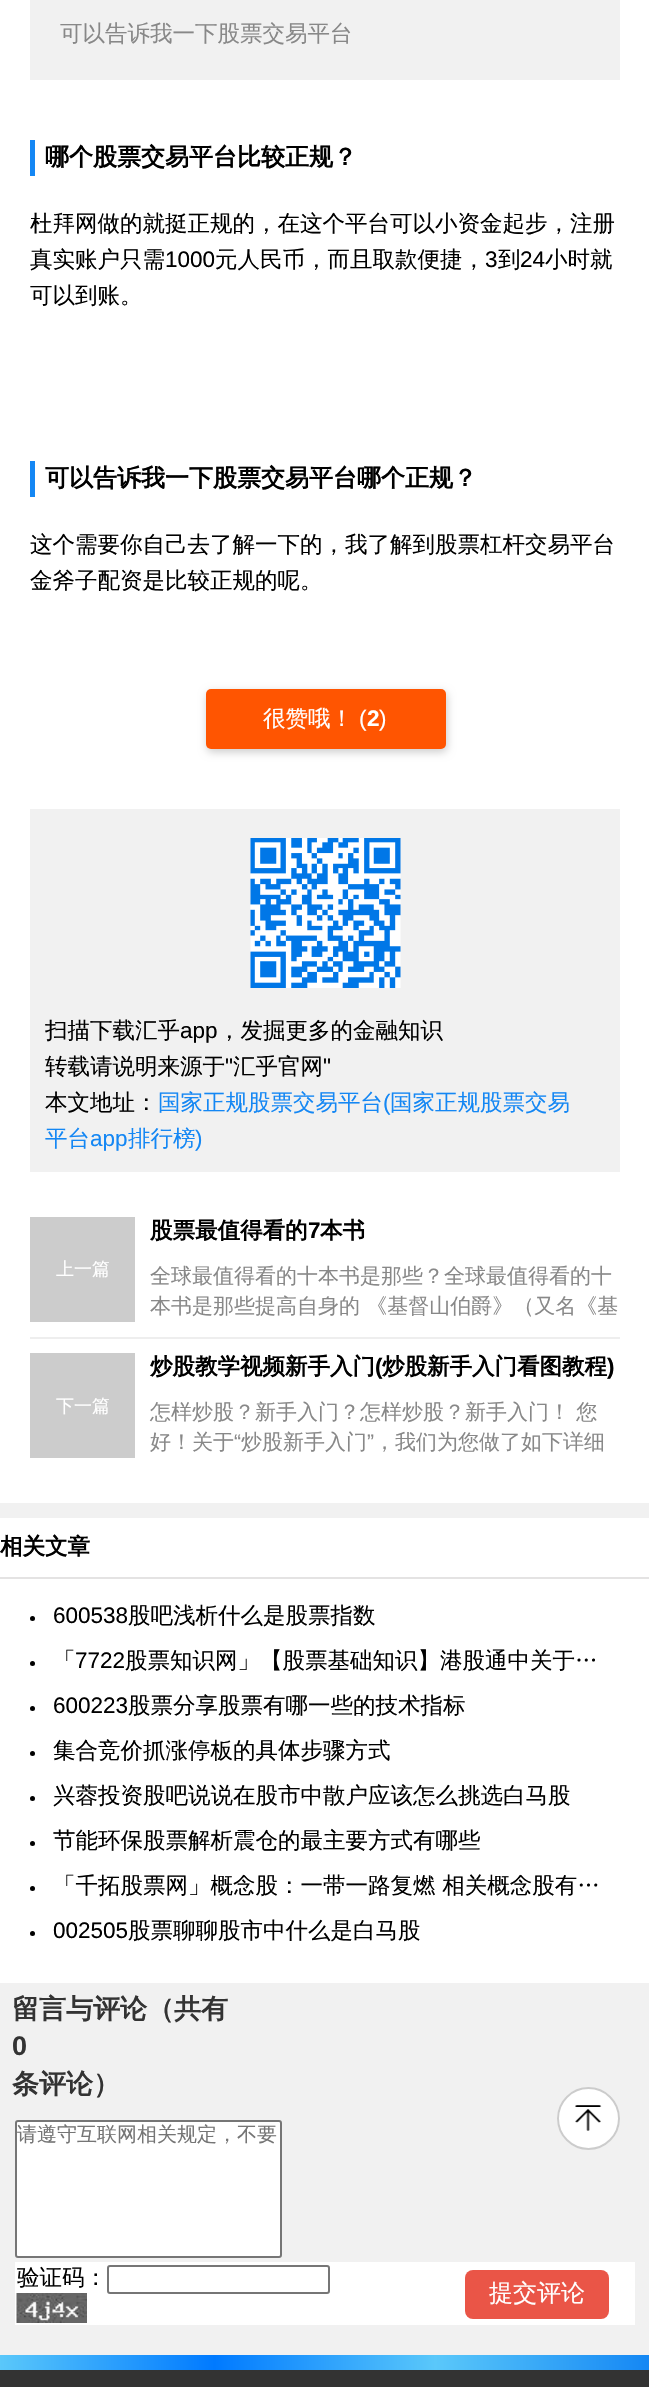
void draw(SkCanvas* canvas) {
    SkPaint paint;
    paint.setAntiAlias(true);
    auto face = [&](const char* family, int weight, float size, bool italic = false) {
        SkFontStyle style(weight, SkFontStyle::kNormal_Width,
            italic ? SkFontStyle::kItalic_Slant : SkFontStyle::kUpright_Slant);
        SkFont result(fontMgr->matchFamilyStyle(family, style), size);
        result.setSubpixel(true);
        return result;
    };
    auto write = [&](const char* s, float x, float y, const SkFont& font, SkColor color) {
        SkPaint ink(SkColor4f::FromColor(color));
        ink.setAntiAlias(true);
        canvas->drawString(s, x, y, font, ink);
    };
    auto block = [&](float x, float y, float w, float h, SkColor color) {
        SkPaint ink(SkColor4f::FromColor(color));
        ink.setAntiAlias(true);
        canvas->drawRect(SkRect::MakeXYWH(x, y, w, h), ink);
    };
    auto card = [&](float x, float y, float w, float h, float radius, SkColor color) {
        SkPaint ink(SkColor4f::FromColor(color));
        ink.setAntiAlias(true);
        canvas->drawRoundRect(SkRect::MakeXYWH(x, y, w, h), radius, radius, ink);
    };
    auto paste = [&](const char* path, float x, float y, float w, float h) {
        auto image = SkImages::DeferredFromEncodedData(SkData::MakeFromFileName(path));
        canvas->drawImageRect(image, SkRect::MakeXYWH(x, y, w, h), SkSamplingOptions());
    };
    canvas->clear(SkColorSetRGB(241, 241, 241));
    block(0, 0, 649, 1503, SK_ColorWHITE);
    block(30, 0, 590, 80, SkColorSetRGB(241, 241, 241));
    auto kFont1 = face("WenQuanYi Zen Hei", 500, 22.5f);
    write("可以告诉我一下股票交易平台", 60, 41, kFont1, SkColorSetRGB(136, 136, 136));
    block(30, 140, 5, 36, SkColorSetRGB(20, 135, 244));
    auto kFont2 = face("WenQuanYi Zen Hei", 700, 24);
    write("哪个股票交易平台比较正规？", 45, 165, kFont2, SK_ColorBLACK);
    write("杜拜网做的就挺正规的，在这个平台可以小资金起步，注册", 30, 231, kFont1, SK_ColorBLACK);
    write("真实账户只需", 30, 267, kFont1, SK_ColorBLACK);
    auto kFont3 = face("Liberation Sans", 400, 22.5f);
    write("1000", 165, 267, kFont3, SK_ColorBLACK);
    write("元人民币，而且取款便捷，", 215, 267, kFont1, SK_ColorBLACK);
    write("3", 485, 267, kFont3, SK_ColorBLACK);
    write("到", 498, 267, kFont1, SK_ColorBLACK);
    write("24", 520, 267, kFont3, SK_ColorBLACK);
    write("小时就", 545, 267, kFont1, SK_ColorBLACK);
    write("可以到账。", 30, 303, kFont1, SK_ColorBLACK);
    block(30, 461, 5, 36, SkColorSetRGB(20, 135, 244));
    write("可以告诉我一下股票交易平台哪个正规？", 45, 486, kFont2, SK_ColorBLACK);
    write("这个需要你自己去了解一下的，我了解到股票杠杆交易平台", 30, 552, kFont1, SK_ColorBLACK);
    write("金斧子配资是比较正规的呢。", 30, 588, kFont1, SK_ColorBLACK);
    paint.setColor(SkColorSetARGB(51, 0, 0, 0));
    paint.setMaskFilter(SkMaskFilter::MakeBlur(kNormal_SkBlurStyle, 4.5f));
    canvas->drawRoundRect(SkRect::MakeXYWH(207, 692, 240, 60), 5, 5, paint);
    paint.setMaskFilter(nullptr);
    card(206, 689, 240, 60, 5, SkColorSetRGB(255, 85, 1));
    write("很赞哦！", 263, 726, kFont1, SK_ColorWHITE);
    write("(", 359, 726, kFont3, SK_ColorWHITE);
    auto kFont4 = face("Liberation Sans", 700, 22.5f);
    write("2", 367, 726, kFont4, SK_ColorWHITE);
    write(")", 379, 726, kFont3, SK_ColorWHITE);
    block(30, 809, 590, 363, SkColorSetRGB(241, 241, 241));
    paste("pic1.png", 250, 838, 151, 150);
    write("扫描下载汇乎", 45, 1038, kFont1, SK_ColorBLACK);
    write("app", 180, 1038, kFont3, SK_ColorBLACK);
    write("，发掘更多的金融知识", 218, 1038, kFont1, SK_ColorBLACK);
    write("转载请说明来源于", 45, 1074, kFont1, SK_ColorBLACK);
    write("\"", 225, 1074, kFont3, SK_ColorBLACK);
    write("汇乎官网", 233, 1074, kFont1, SK_ColorBLACK);
    write("\"", 323, 1074, kFont3, SK_ColorBLACK);
    write("本文地址：", 45, 1110, kFont1, SK_ColorBLACK);
    write("国家正规股票交易平台", 158, 1110, kFont1, SkColorSetRGB(20, 135, 244));
    write("(", 383, 1110, kFont3, SkColorSetRGB(20, 135, 244));
    write("国家正规股票交易", 390, 1110, kFont1, SkColorSetRGB(20, 135, 244));
    write("平台", 45, 1146, kFont1, SkColorSetRGB(20, 135, 244));
    write("app", 90, 1146, kFont3, SkColorSetRGB(20, 135, 244));
    write("排行榜", 128, 1146, kFont1, SkColorSetRGB(20, 135, 244));
    write(")", 195, 1146, kFont3, SkColorSetRGB(20, 135, 244));
    block(30, 1337, 590, 2, SkColorSetRGB(238, 238, 238));
    auto kFont5 = face("WenQuanYi Zen Hei", 700, 22.5f);
    write("股票最值得看的", 150, 1238, kFont5, SK_ColorBLACK);
    write("7", 308, 1238, kFont4, SK_ColorBLACK);
    write("本书", 320, 1238, kFont5, SK_ColorBLACK);
    block(30, 1217, 105, 105, SkColorSetRGB(204, 204, 204));
    auto kFont6 = face("WenQuanYi Zen Hei", 500, 18);
    write("上一篇", 56, 1275, kFont6, SK_ColorWHITE);
    auto kFont7 = face("WenQuanYi Zen Hei", 500, 21);
    write("全球最值得看的十本书是那些？全球最值得看的十", 150, 1283, kFont7, SkColorSetRGB(136, 136, 136));
    write("本书是那些提高自身的 《基督山伯爵》（又名《基", 150, 1313, kFont7, SkColorSetRGB(136, 136, 136));
    write("炒股教学视频新手入门", 150, 1374, kFont5, SK_ColorBLACK);
    write("(", 375, 1374, kFont4, SK_ColorBLACK);
    write("炒股新手入门看图教程", 382, 1374, kFont5, SK_ColorBLACK);
    write(")", 607, 1374, kFont4, SK_ColorBLACK);
    block(30, 1353, 105, 105, SkColorSetRGB(204, 204, 204));
    write("下一篇", 56, 1412, kFont6, SK_ColorWHITE);
    write("怎样炒股？新手入门？怎样炒股？新手入门！ 您", 150, 1419, kFont7, SkColorSetRGB(136, 136, 136));
    write("好！关于", 150, 1449, kFont7, SkColorSetRGB(136, 136, 136));
    auto kFont8 = face("Liberation Sans", 400, 21);
    write("“", 234, 1449, kFont8, SkColorSetRGB(136, 136, 136));
    write("炒股新手入门", 241, 1449, kFont7, SkColorSetRGB(136, 136, 136));
    write("”", 367, 1449, kFont8, SkColorSetRGB(136, 136, 136));
    write("，我们为您做了如下详细", 374, 1449, kFont7, SkColorSetRGB(136, 136, 136));
    block(0, 1518, 649, 465, SK_ColorWHITE);
    block(0, 1577, 649, 2, SkColorSetRGB(228, 227, 227));
    write("相关文章", 0, 1554, kFont5, SK_ColorBLACK);
    paint.setColor(SK_ColorBLACK);
    canvas->drawCircle(32.5f, 1618.5f, 2.5f, paint);
    write("600538", 53, 1623, kFont3, SK_ColorBLACK);
    write("股吧浅析什么是股票指数", 128, 1623, kFont1, SK_ColorBLACK);
    canvas->drawCircle(32.5f, 1663.5f, 2.5f, paint);
    write("「", 53, 1668, kFont1, SK_ColorBLACK);
    write("7722", 75, 1668, kFont3, SK_ColorBLACK);
    write("股票知识网」【股票基础知识】港股通中关于…", 125, 1668, kFont1, SK_ColorBLACK);
    canvas->drawCircle(32.5f, 1708.5f, 2.5f, paint);
    write("600223", 53, 1713, kFont3, SK_ColorBLACK);
    write("股票分享股票有哪一些的技术指标", 128, 1713, kFont1, SK_ColorBLACK);
    canvas->drawCircle(32.5f, 1753.5f, 2.5f, paint);
    write("集合竞价抓涨停板的具体步骤方式", 53, 1758, kFont1, SK_ColorBLACK);
    canvas->drawCircle(32.5f, 1798.5f, 2.5f, paint);
    write("兴蓉投资股吧说说在股市中散户应该怎么挑选白马股", 53, 1803, kFont1, SK_ColorBLACK);
    canvas->drawCircle(32.5f, 1843.5f, 2.5f, paint);
    write("节能环保股票解析震仓的最主要方式有哪些", 53, 1848, kFont1, SK_ColorBLACK);
    canvas->drawCircle(32.5f, 1888.5f, 2.5f, paint);
    write("「千拓股票网」概念股：一带一路复燃 相关概念股有…", 53, 1893, kFont1, SK_ColorBLACK);
    canvas->drawCircle(32.5f, 1933.5f, 2.5f, paint);
    write("002505", 53, 1938, kFont3, SK_ColorBLACK);
    write("股票聊聊股市中什么是白马股", 128, 1938, kFont1, SK_ColorBLACK);
    auto kFont9 = face("WenQuanYi Zen Hei", 700, 27);
    write("留言与评论（共有", 12, 2018, kFont9, SkColorSetRGB(51, 51, 51));
    auto kFont10 = face("Liberation Sans", 700, 27);
    write("0", 12, 2055, kFont10, SkColorSetRGB(51, 51, 51));
    write("条评论）", 12, 2093, kFont9, SkColorSetRGB(51, 51, 51));
    paint.setColor(SK_ColorWHITE);
    canvas->drawRoundRect(SkRect::MakeXYWH(16, 2121, 265, 136), 2, 2, paint);
    paint.setStyle(SkPaint::kStroke_Style);
    paint.setStrokeWidth(2);
    paint.setColor(SkColorSetRGB(118, 118, 118));
    canvas->drawRoundRect(SkRect::MakeXYWH(16, 2121, 265, 136), 2, 2, paint);
    auto kFont11 = face("WenQuanYi Zen Hei", 500, 20);
    write("请遵守互联网相关规定，不要", 17, 2141, kFont11, SkColorSetRGB(117, 117, 117));
    block(15, 2262, 620, 63, SK_ColorWHITE);
    write("验证码：", 17, 2285, kFont1, SK_ColorBLACK);
    canvas->drawRoundRect(SkRect::MakeXYWH(108, 2266, 221, 27), 2, 2, paint);
    paste("pic2.png", 16, 2293, 71, 30);
    card(465, 2270, 144, 49, 8, SkColorSetRGB(234, 85, 71));
    auto kFont12 = face("WenQuanYi Zen Hei", 500, 24);
    write("提交评论", 489, 2301, kFont12, SK_ColorWHITE);
    paint.setStyle(SkPaint::kFill_Style);
    paint.setColor(SK_ColorWHITE);
    canvas->drawCircle(588.5f, 2118.5f, 31.5f, paint);
    paste("pic3.png", 575, 2105, 27, 26);
    paint.setStyle(SkPaint::kStroke_Style);
    paint.setColor(SkColorSetRGB(204, 204, 204));
    canvas->drawCircle(588.5f, 2118.5f, 30.5f, paint);
    block(0, 2370, 649, 17, SkColorSetRGB(51, 51, 51));
    paint.setStyle(SkPaint::kFill_Style);
    {
        const SkColor colors[] = {SkColorSetRGB(20, 135, 244), SkColorSetRGB(90, 200, 250), SkColorSetRGB(0, 122, 255), SkColorSetRGB(90, 200, 250)};
        const float stops[] = {0, 0.33f, 0.67f, 1};
        const SkPoint ends[] = {{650, 2363}, {0, 2363}};
        paint.setShader(SkGradientShader::MakeLinear(ends, colors, stops, 4, SkTileMode::kClamp));
        paint.setAlpha(255);
    }
    canvas->drawRect(SkRect::MakeXYWH(0, 2355, 649, 15), paint);
}
